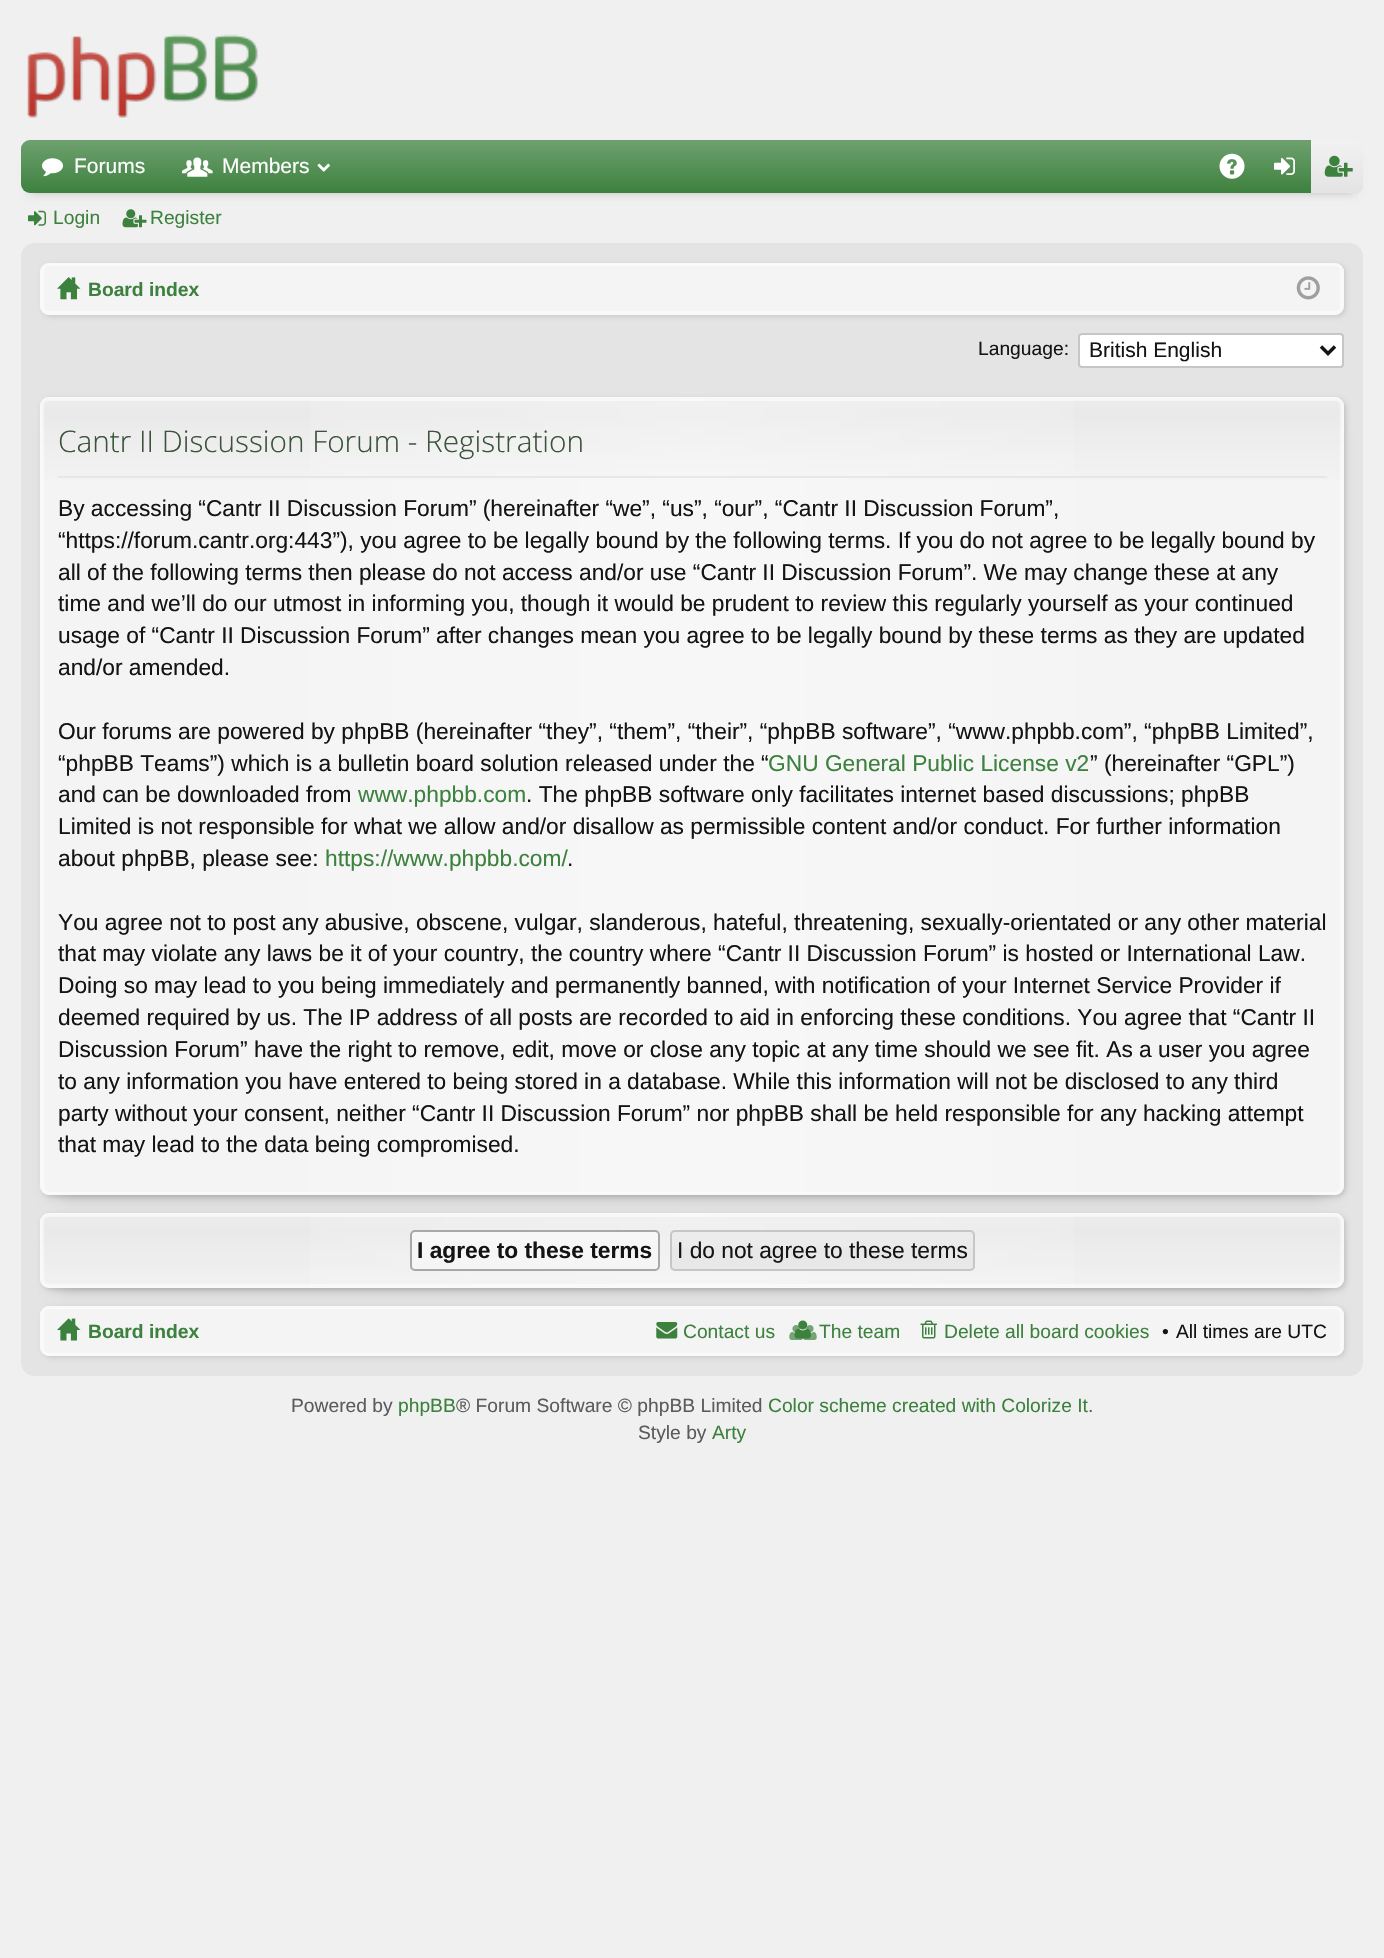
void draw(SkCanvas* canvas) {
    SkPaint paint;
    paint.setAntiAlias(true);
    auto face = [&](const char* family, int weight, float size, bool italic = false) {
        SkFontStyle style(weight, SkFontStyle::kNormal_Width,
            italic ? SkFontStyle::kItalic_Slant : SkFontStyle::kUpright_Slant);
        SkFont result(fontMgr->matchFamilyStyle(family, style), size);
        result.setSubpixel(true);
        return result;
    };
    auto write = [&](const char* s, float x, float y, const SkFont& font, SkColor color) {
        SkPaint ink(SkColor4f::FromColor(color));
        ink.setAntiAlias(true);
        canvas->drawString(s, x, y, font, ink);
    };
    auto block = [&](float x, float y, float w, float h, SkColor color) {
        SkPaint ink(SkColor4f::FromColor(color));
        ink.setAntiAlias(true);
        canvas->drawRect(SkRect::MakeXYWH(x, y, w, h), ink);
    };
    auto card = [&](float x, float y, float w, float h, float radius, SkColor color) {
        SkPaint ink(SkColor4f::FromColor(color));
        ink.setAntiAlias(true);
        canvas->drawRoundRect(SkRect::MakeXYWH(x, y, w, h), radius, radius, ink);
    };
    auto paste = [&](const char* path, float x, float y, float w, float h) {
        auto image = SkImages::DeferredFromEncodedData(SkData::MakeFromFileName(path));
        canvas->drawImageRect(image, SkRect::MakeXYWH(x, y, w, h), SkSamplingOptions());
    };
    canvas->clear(SkColorSetRGB(240, 240, 240));
    paste("pic1.png", 27, 34, 232, 84);
    paint.setColor(SkColorSetARGB(51, 0, 0, 0));
    paint.setMaskFilter(SkMaskFilter::MakeBlur(kNormal_SkBlurStyle, 4.5f));
    canvas->drawRect(SkRect::MakeXYWH(30, 158, 1325, 35), paint);
    paint.setMaskFilter(nullptr);
    card(21, 140, 1342, 53, 9, SkColorSetRGB(61, 129, 62));
    {
        const SkColor colors[] = {SkColorSetARGB(64, 255, 255, 255), SkColorSetARGB(0, 255, 255, 255)};
        const float stops[] = {0, 1};
        const SkPoint ends[] = {{692, 140}, {692, 193}};
        paint.setShader(SkGradientShader::MakeLinear(ends, colors, stops, 2, SkTileMode::kClamp));
        paint.setAlpha(255);
    }
    canvas->drawRoundRect(SkRect::MakeXYWH(21, 140, 1342, 53), 9, 9, paint);
    paste("pic2.png", 42, 158, 21, 19);
    auto kFont1 = face("Liberation Sans", 400, 21);
    write("Forums", 74, 173, kFont1, SK_ColorWHITE);
    paste("pic3.png", 182, 157, 31, 20);
    write("Members", 222, 173, kFont1, SK_ColorWHITE);
    paste("pic4.png", 317, 163, 13, 9);
    paste("pic5.png", 1219, 153, 26, 26);
    paste("pic6.png", 1274, 157, 21, 18);
    paint.setShader(nullptr);
    paint.setColor(SkColorSetRGB(228, 228, 228));
    canvas->drawPath(SkPathBuilder().moveTo(1311, 140).lineTo(1356, 140).cubicTo(1360, 140, 1363, 143, 1363, 147).lineTo(1363, 186).cubicTo(1363, 190, 1360, 193, 1356, 193).lineTo(1311, 193).close().detach(), paint);
    {
        const SkColor colors[] = {SkColorSetARGB(128, 255, 255, 255), SkColorSetARGB(0, 255, 255, 255)};
        const float stops[] = {0, 1};
        const SkPoint ends[] = {{1337, 140}, {1337, 193}};
        paint.setShader(SkGradientShader::MakeLinear(ends, colors, stops, 2, SkTileMode::kClamp));
        paint.setAlpha(255);
    }
    canvas->drawPath(SkPathBuilder().moveTo(1311, 140).lineTo(1356, 140).cubicTo(1360, 140, 1363, 143, 1363, 147).lineTo(1363, 186).cubicTo(1363, 190, 1360, 193, 1356, 193).lineTo(1311, 193).close().detach(), paint);
    paste("pic7.png", 1324, 155, 29, 22);
    paste("pic8.png", 28, 210, 18, 16);
    auto kFont2 = face("Liberation Sans", 400, 19.25f);
    write("Login", 53, 224, kFont2, SkColorSetRGB(61, 129, 62));
    paste("pic9.png", 122, 209, 25, 19);
    write("Register", 150, 224, kFont2, SkColorSetRGB(61, 129, 62));
    paint.setShader(nullptr);
    paint.setColor(SkColorSetRGB(228, 228, 228));
    canvas->drawRoundRect(SkRect::MakeXYWH(22, 244, 1340, 1131), 13, 13, paint);
    paint.setStyle(SkPaint::kStroke_Style);
    paint.setStrokeWidth(2);
    canvas->drawRoundRect(SkRect::MakeXYWH(22, 244, 1340, 1131), 13, 13, paint);
    paint.setStyle(SkPaint::kFill_Style);
    paint.setColor(SkColorSetARGB(26, 0, 0, 0));
    paint.setMaskFilter(SkMaskFilter::MakeBlur(kNormal_SkBlurStyle, 2));
    canvas->drawRoundRect(SkRect::MakeXYWH(42, 264, 1304, 53), 9, 9, paint);
    paint.setMaskFilter(nullptr);
    card(40, 263, 1304, 52, 9, SkColorSetRGB(244, 244, 244));
    paint.setStyle(SkPaint::kStroke_Style);
    paint.setColor(SkColorSetRGB(250, 250, 250));
    canvas->drawRoundRect(SkRect::MakeXYWH(43, 265, 1298, 47), 6, 6, paint);
    paint.setColor(SkColorSetRGB(249, 249, 249));
    canvas->drawRoundRect(SkRect::MakeXYWH(41, 264, 1302, 50), 8, 8, paint);
    paste("pic10.png", 57, 277, 24, 23);
    auto kFont3 = face("Liberation Sans", 700, 19.25f);
    write("Board index", 88, 296, kFont3, SkColorSetRGB(61, 129, 62));
    paste("pic11.png", 1296, 276, 24, 24);
    write("Language:", 978, 355, kFont2, SkColorSetRGB(20, 20, 20));
    paint.setStyle(SkPaint::kFill_Style);
    paint.setColor(SK_ColorWHITE);
    canvas->drawRoundRect(SkRect::MakeXYWH(1079, 334, 264, 33), 3, 3, paint);
    paint.setStyle(SkPaint::kStroke_Style);
    paint.setColor(SkColorSetRGB(198, 198, 198));
    canvas->drawRoundRect(SkRect::MakeXYWH(1079, 334, 264, 33), 3, 3, paint);
    paint.setStrokeWidth(3.5f);
    paint.setColor(SkColorSetRGB(20, 20, 20));
    canvas->drawPath(SkPathBuilder().moveTo(1321, 346.5f).lineTo(1328, 353.5f).lineTo(1335, 346.5f).detach(), paint);
    write("British English", 1089, 357, kFont1, SkColorSetRGB(20, 20, 20));
    paint.setStyle(SkPaint::kFill_Style);
    paint.setColor(SkColorSetARGB(51, 0, 0, 0));
    paint.setMaskFilter(SkMaskFilter::MakeBlur(kNormal_SkBlurStyle, 9));
    canvas->drawRect(SkRect::MakeXYWH(58, 432, 1269, 763), paint);
    paint.setMaskFilter(nullptr);
    paint.setColor(SkColorSetARGB(38, 0, 0, 0));
    paint.setMaskFilter(SkMaskFilter::MakeBlur(kNormal_SkBlurStyle, 2.5f));
    canvas->drawRoundRect(SkRect::MakeXYWH(42, 399, 1304, 798), 9, 9, paint);
    paint.setMaskFilter(nullptr);
    card(40, 397, 1304, 798, 9, SkColorSetRGB(244, 244, 244));
    canvas->save();
    canvas->clipPath(SkPathBuilder().moveTo(49, 397).lineTo(1335, 397).cubicTo(1340, 397, 1344, 401, 1344, 406).lineTo(1344, 1186).cubicTo(1344, 1191, 1340, 1195, 1335, 1195).lineTo(49, 1195).cubicTo(44, 1195, 40, 1191, 40, 1186).lineTo(40, 406).cubicTo(40, 401, 44, 397, 49, 397).close().detach(), true);
    {
        const SkColor colors[] = {SkColorSetARGB(51, 204, 204, 204), SkColorSetARGB(64, 204, 204, 204), SkColorSetARGB(0, 204, 204, 204)};
        const float stops[] = {0, 0.02f, 0.11f};
        const SkPoint ends[] = {{692, 399}, {692, 1194}};
        paint.setShader(SkGradientShader::MakeLinear(ends, colors, stops, 3, SkTileMode::kClamp));
        paint.setAlpha(255);
    }
    canvas->drawRect(SkRect::MakeXYWH(40, 399, 1304, 81), paint);
    canvas->restore();
    {
        const SkColor colors[] = {SkColorSetARGB(0, 255, 255, 255), SkColorSetARGB(77, 255, 255, 255), SkColorSetARGB(0, 255, 255, 255)};
        const float stops[] = {0, 0.5f, 1};
        const SkPoint ends[] = {{42, 796}, {1342, 796}};
        paint.setShader(SkGradientShader::MakeLinear(ends, colors, stops, 3, SkTileMode::kClamp));
        paint.setAlpha(255);
    }
    canvas->drawRect(SkRect::MakeXYWH(310, 399, 764, 794), paint);
    paint.setStyle(SkPaint::kStroke_Style);
    paint.setStrokeWidth(2);
    paint.setShader(nullptr);
    paint.setColor(SkColorSetARGB(128, 255, 255, 255));
    canvas->drawRoundRect(SkRect::MakeXYWH(43, 400, 1298, 793), 6, 6, paint);
    paint.setColor(SkColorSetRGB(249, 249, 249));
    canvas->drawRoundRect(SkRect::MakeXYWH(41, 398, 1302, 796), 8, 8, paint);
    block(58, 476, 1269, 2, SkColorSetRGB(231, 231, 231));
    auto kFont4 = face("Open Sans", 300, 29.75f);
    write("Cantr II Discussion Forum - Registration", 58, 452, kFont4, SkColorSetRGB(58, 83, 58));
    auto kFont5 = face("Liberation Sans", 400, 22.75f);
    write("By accessing “Cantr II Discussion Forum” (hereinafter “we”, “us”, “our”, “Cantr II Discussion Forum”,", 58, 516, kFont5, SkColorSetRGB(20, 20, 20));
    write("“https://forum.cantr.org:443”), you agree to be legally bound by the following terms. If you do not agree to be legally bound by", 58, 548, kFont5, SkColorSetRGB(20, 20, 20));
    write("all of the following terms then please do not access and/or use “Cantr II Discussion Forum”. We may change these at any", 58, 580, kFont5, SkColorSetRGB(20, 20, 20));
    write("time and we’ll do our utmost in informing you, though it would be prudent to review this regularly yourself as your continued", 58, 611, kFont5, SkColorSetRGB(20, 20, 20));
    write("usage of “Cantr II Discussion Forum” after changes mean you agree to be legally bound by these terms as they are updated", 58, 643, kFont5, SkColorSetRGB(20, 20, 20));
    write("and/or amended.", 58, 675, kFont5, SkColorSetRGB(20, 20, 20));
    write("Our forums are powered by phpBB (hereinafter “they”, “them”, “their”, “phpBB software”, “www.phpbb.com”, “phpBB Limited”,", 58, 739, kFont5, SkColorSetRGB(20, 20, 20));
    write("“phpBB Teams”) which is a bulletin board solution released under the “", 58, 771, kFont5, SkColorSetRGB(20, 20, 20));
    write("GNU General Public License v2", 768, 771, kFont5, SkColorSetRGB(61, 129, 62));
    write("” (hereinafter “GPL”)", 1090, 771, kFont5, SkColorSetRGB(20, 20, 20));
    write("and can be downloaded from", 58, 802, kFont5, SkColorSetRGB(20, 20, 20));
    write("www.phpbb.com", 358, 802, kFont5, SkColorSetRGB(61, 129, 62));
    write(". The phpBB software only facilitates internet based discussions; phpBB", 526, 802, kFont5, SkColorSetRGB(20, 20, 20));
    write("Limited is not responsible for what we allow and/or disallow as permissible content and/or conduct. For further information", 58, 834, kFont5, SkColorSetRGB(20, 20, 20));
    write("about phpBB, please see:", 58, 866, kFont5, SkColorSetRGB(20, 20, 20));
    write("https://www.phpbb.com/", 325, 866, kFont5, SkColorSetRGB(61, 129, 62));
    write(".", 567, 866, kFont5, SkColorSetRGB(20, 20, 20));
    write("You agree not to post any abusive, obscene, vulgar, slanderous, hateful, threatening, sexually-orientated or any other material", 58, 930, kFont5, SkColorSetRGB(20, 20, 20));
    write("that may violate any laws be it of your country, the country where “Cantr II Discussion Forum” is hosted or International Law.", 58, 961, kFont5, SkColorSetRGB(20, 20, 20));
    write("Doing so may lead to you being immediately and permanently banned, with notification of your Internet Service Provider if", 58, 993, kFont5, SkColorSetRGB(20, 20, 20));
    write("deemed required by us. The IP address of all posts are recorded to aid in enforcing these conditions. You agree that “Cantr II", 58, 1025, kFont5, SkColorSetRGB(20, 20, 20));
    write("Discussion Forum” have the right to remove, edit, move or close any topic at any time should we see fit. As a user you agree", 58, 1057, kFont5, SkColorSetRGB(20, 20, 20));
    write("to any information you have entered to being stored in a database. While this information will not be disclosed to any third", 58, 1089, kFont5, SkColorSetRGB(20, 20, 20));
    write("party without your consent, neither “Cantr II Discussion Forum” nor phpBB shall be held responsible for any hacking attempt", 58, 1121, kFont5, SkColorSetRGB(20, 20, 20));
    write("that may lead to the data being compromised.", 58, 1152, kFont5, SkColorSetRGB(20, 20, 20));
    paint.setStyle(SkPaint::kFill_Style);
    paint.setColor(SkColorSetARGB(51, 0, 0, 0));
    paint.setMaskFilter(SkMaskFilter::MakeBlur(kNormal_SkBlurStyle, 9));
    canvas->drawRect(SkRect::MakeXYWH(58, 1248, 1269, 40), paint);
    paint.setMaskFilter(nullptr);
    paint.setColor(SkColorSetARGB(38, 0, 0, 0));
    paint.setMaskFilter(SkMaskFilter::MakeBlur(kNormal_SkBlurStyle, 2.5f));
    canvas->drawRoundRect(SkRect::MakeXYWH(42, 1215, 1304, 75), 9, 9, paint);
    paint.setMaskFilter(nullptr);
    card(40, 1213, 1304, 75, 9, SkColorSetRGB(244, 244, 244));
    canvas->save();
    canvas->clipPath(SkPathBuilder().moveTo(49, 1213).lineTo(1335, 1213).cubicTo(1340, 1213, 1344, 1217, 1344, 1222).lineTo(1344, 1279).cubicTo(1344, 1284, 1340, 1288, 1335, 1288).lineTo(49, 1288).cubicTo(44, 1288, 40, 1284, 40, 1279).lineTo(40, 1222).cubicTo(40, 1217, 44, 1213, 49, 1213).close().detach(), true);
    {
        const SkColor colors[] = {SkColorSetARGB(51, 204, 204, 204), SkColorSetARGB(64, 204, 204, 204), SkColorSetARGB(0, 204, 204, 204)};
        const float stops[] = {0, 0.2f, 1};
        const SkPoint ends[] = {{692, 1215}, {692, 1302}};
        paint.setShader(SkGradientShader::MakeLinear(ends, colors, stops, 3, SkTileMode::kClamp));
        paint.setAlpha(255);
    }
    canvas->drawRect(SkRect::MakeXYWH(40, 1215, 1304, 71), paint);
    canvas->restore();
    {
        const SkColor colors[] = {SkColorSetARGB(0, 255, 255, 255), SkColorSetARGB(77, 255, 255, 255), SkColorSetARGB(0, 255, 255, 255)};
        const float stops[] = {0, 0.5f, 1};
        const SkPoint ends[] = {{42, 1250}, {1342, 1250}};
        paint.setShader(SkGradientShader::MakeLinear(ends, colors, stops, 3, SkTileMode::kClamp));
        paint.setAlpha(255);
    }
    canvas->drawRect(SkRect::MakeXYWH(310, 1215, 764, 71), paint);
    paint.setStyle(SkPaint::kStroke_Style);
    paint.setShader(nullptr);
    paint.setColor(SkColorSetARGB(128, 255, 255, 255));
    canvas->drawRoundRect(SkRect::MakeXYWH(43, 1216, 1298, 69), 6, 6, paint);
    paint.setColor(SkColorSetRGB(249, 249, 249));
    canvas->drawRoundRect(SkRect::MakeXYWH(41, 1214, 1302, 73), 8, 8, paint);
    canvas->save();
    canvas->clipPath(SkPathBuilder().moveTo(415, 1230).lineTo(655, 1230).cubicTo(658, 1230, 660, 1232, 660, 1235).lineTo(660, 1266).cubicTo(660, 1269, 658, 1271, 655, 1271).lineTo(415, 1271).cubicTo(412, 1271, 410, 1269, 410, 1266).lineTo(410, 1235).cubicTo(410, 1232, 412, 1230, 415, 1230).close().detach(), true);
    paint.setStyle(SkPaint::kFill_Style);
    {
        const SkColor colors[] = {SkColorSetRGB(247, 247, 247), SkColorSetRGB(245, 245, 245)};
        const float stops[] = {0, 1};
        const SkPoint ends[] = {{535, 1232}, {535, 1269}};
        paint.setShader(SkGradientShader::MakeLinear(ends, colors, stops, 2, SkTileMode::kClamp));
        paint.setAlpha(255);
    }
    canvas->drawRect(SkRect::MakeXYWH(410, 1232, 250, 37), paint);
    canvas->restore();
    paint.setStyle(SkPaint::kStroke_Style);
    paint.setShader(nullptr);
    paint.setColor(SkColorSetRGB(168, 168, 168));
    canvas->drawRoundRect(SkRect::MakeXYWH(411, 1231, 248, 39), 4, 4, paint);
    auto kFont6 = face("Liberation Sans", 700, 22.75f);
    write("I agree to these terms", 417, 1258, kFont6, SkColorSetRGB(20, 20, 20));
    card(670, 1230, 305, 41, 5, SkColorSetRGB(232, 232, 232));
    paint.setStyle(SkPaint::kFill_Style);
    {
        const SkColor colors[] = {SkColorSetARGB(51, 255, 255, 255), SkColorSetARGB(0, 255, 255, 255)};
        const float stops[] = {0, 1};
        const SkPoint ends[] = {{823, 1232}, {823, 1269}};
        paint.setShader(SkGradientShader::MakeLinear(ends, colors, stops, 2, SkTileMode::kClamp));
        paint.setAlpha(255);
    }
    canvas->drawRect(SkRect::MakeXYWH(670, 1232, 305, 16), paint);
    paint.setStyle(SkPaint::kStroke_Style);
    paint.setShader(nullptr);
    paint.setColor(SkColorSetRGB(198, 198, 198));
    canvas->drawRoundRect(SkRect::MakeXYWH(671, 1231, 303, 39), 4, 4, paint);
    write("I do not agree to these terms", 677, 1258, kFont5, SkColorSetRGB(20, 20, 20));
    paint.setStyle(SkPaint::kFill_Style);
    paint.setColor(SkColorSetARGB(26, 0, 0, 0));
    paint.setMaskFilter(SkMaskFilter::MakeBlur(kNormal_SkBlurStyle, 2));
    canvas->drawRoundRect(SkRect::MakeXYWH(42, 1307, 1304, 51), 9, 9, paint);
    paint.setMaskFilter(nullptr);
    card(40, 1306, 1304, 50, 9, SkColorSetRGB(244, 244, 244));
    paint.setStyle(SkPaint::kStroke_Style);
    paint.setColor(SkColorSetRGB(250, 250, 250));
    canvas->drawRoundRect(SkRect::MakeXYWH(43, 1308, 1298, 46), 6, 6, paint);
    paint.setColor(SkColorSetRGB(249, 249, 249));
    canvas->drawRoundRect(SkRect::MakeXYWH(41, 1307, 1302, 48), 8, 8, paint);
    paste("pic12.png", 57, 1318, 24, 23);
    write("Board index", 88, 1338, kFont3, SkColorSetRGB(61, 129, 62));
    paste("pic13.png", 656, 1322, 22, 17);
    write("Contact us", 683, 1338, kFont2, SkColorSetRGB(61, 129, 62));
    paste("pic15.png", 789, 1325, 28, 15);
    paste("pic14.png", 794, 1320, 17, 19);
    write("The team", 819, 1338, kFont2, SkColorSetRGB(61, 129, 62));
    paste("pic16.png", 920, 1320, 17, 19);
    write("Delete all board cookies", 944, 1338, kFont2, SkColorSetRGB(61, 129, 62));
    write("•", 1162, 1338, kFont2, SkColorSetRGB(20, 20, 20));
    write("All times are UTC", 1176, 1338, kFont2, SkColorSetRGB(20, 20, 20));
    write("Powered by", 291, 1412, kFont2, SkColorSetRGB(91, 91, 91));
    write("phpBB", 398, 1412, kFont2, SkColorSetRGB(61, 129, 62));
    write("® Forum Software © phpBB Limited", 456, 1412, kFont2, SkColorSetRGB(91, 91, 91));
    write("Color scheme created with Colorize It", 768, 1412, kFont2, SkColorSetRGB(61, 129, 62));
    write(".", 1088, 1412, kFont2, SkColorSetRGB(91, 91, 91));
    write("Style by", 638, 1439, kFont2, SkColorSetRGB(91, 91, 91));
    write("Arty", 712, 1439, kFont2, SkColorSetRGB(61, 129, 62));
}
